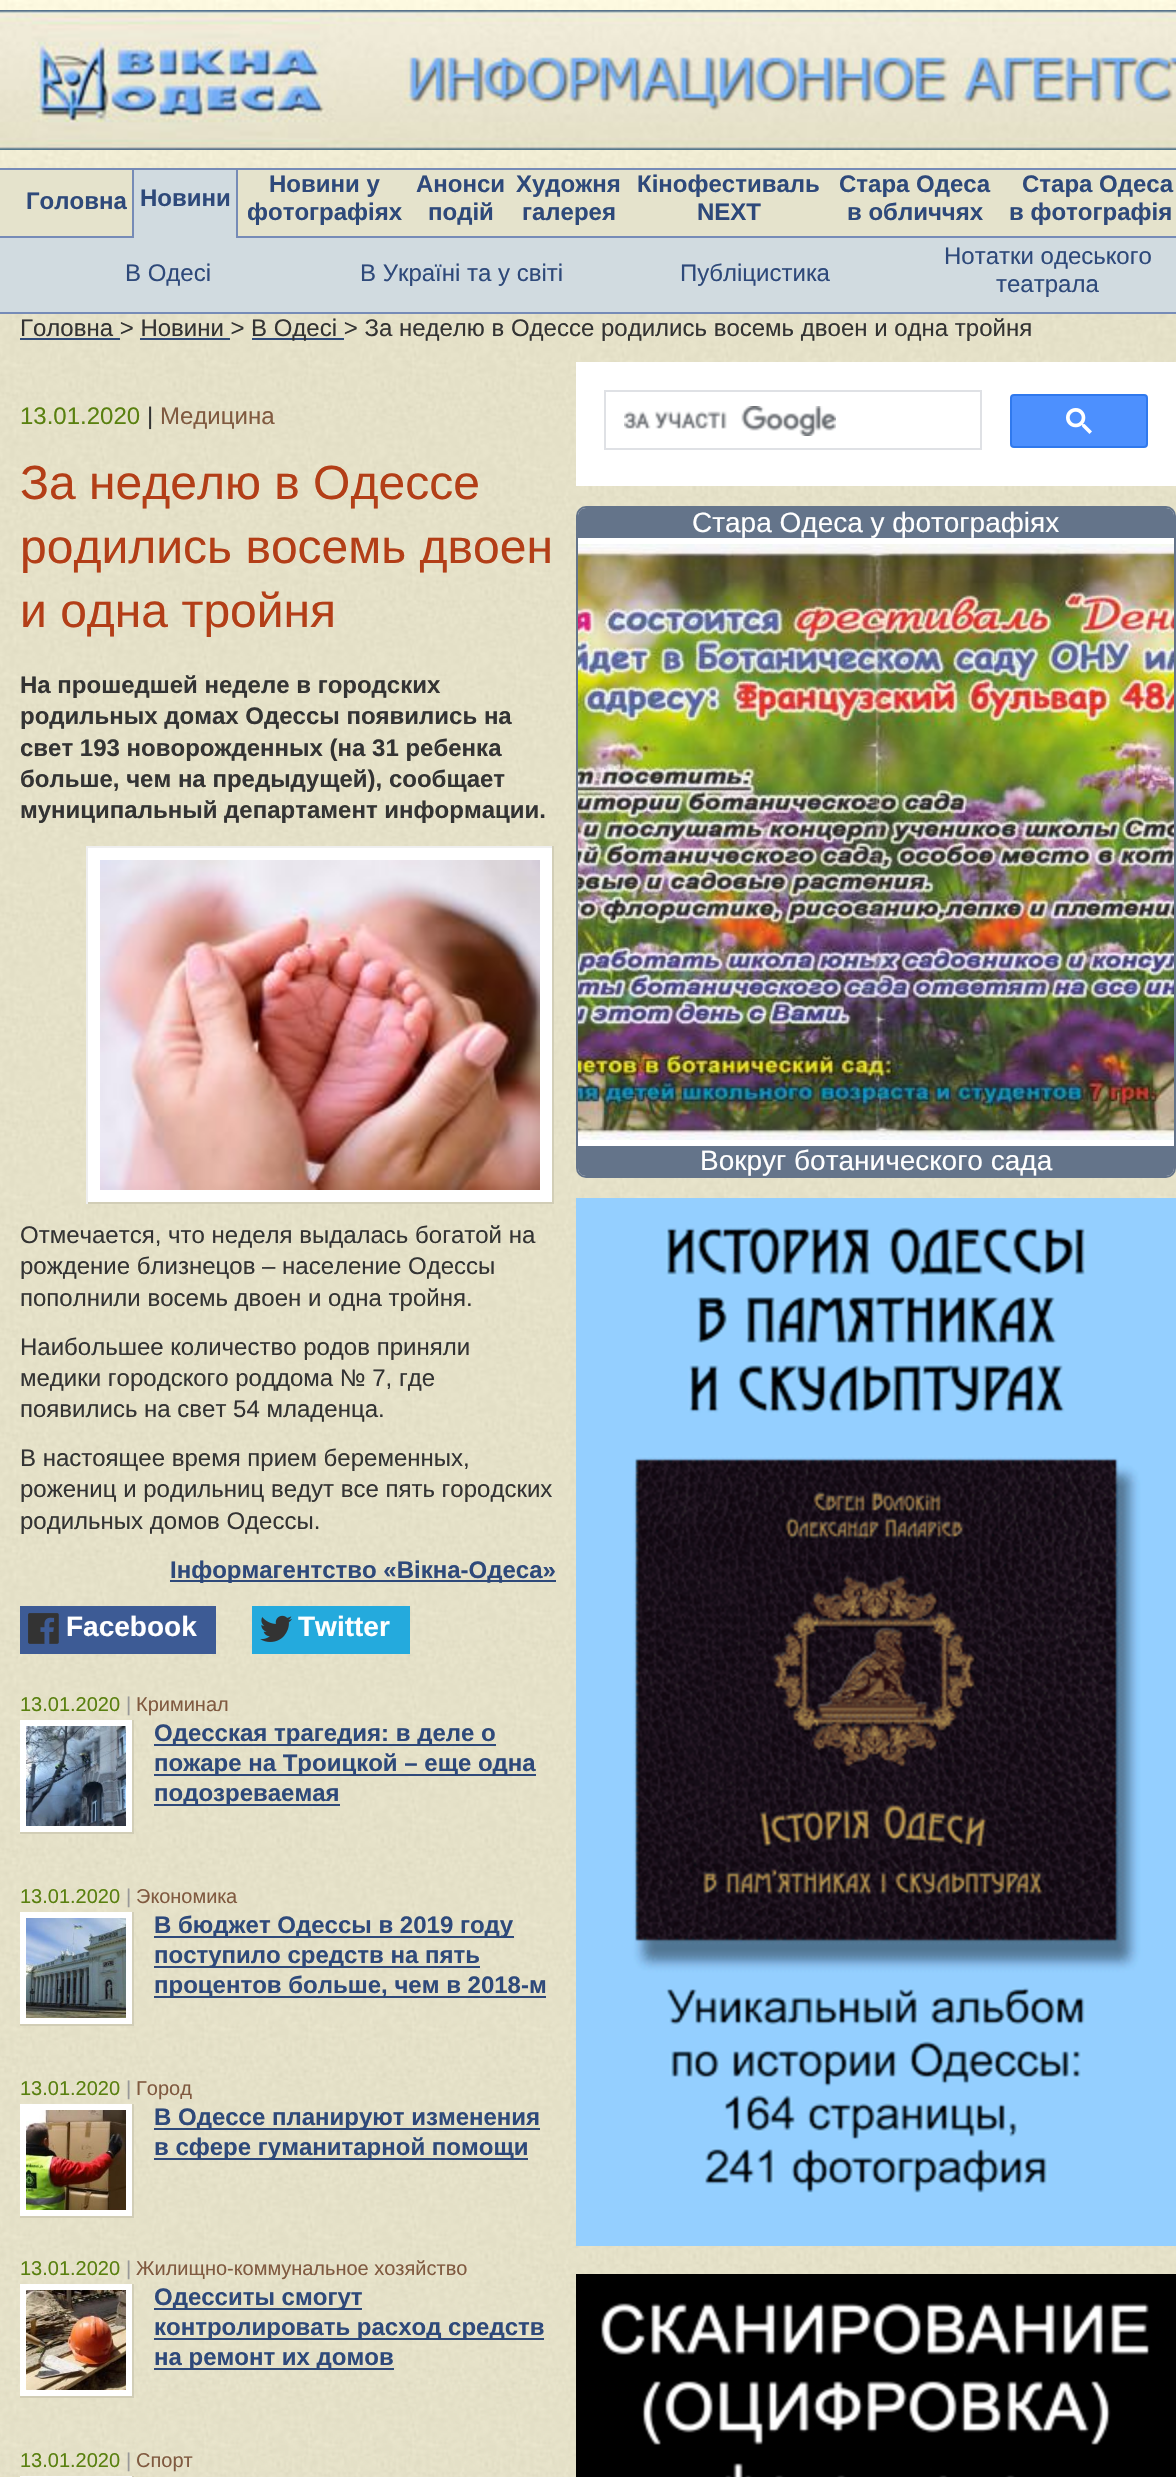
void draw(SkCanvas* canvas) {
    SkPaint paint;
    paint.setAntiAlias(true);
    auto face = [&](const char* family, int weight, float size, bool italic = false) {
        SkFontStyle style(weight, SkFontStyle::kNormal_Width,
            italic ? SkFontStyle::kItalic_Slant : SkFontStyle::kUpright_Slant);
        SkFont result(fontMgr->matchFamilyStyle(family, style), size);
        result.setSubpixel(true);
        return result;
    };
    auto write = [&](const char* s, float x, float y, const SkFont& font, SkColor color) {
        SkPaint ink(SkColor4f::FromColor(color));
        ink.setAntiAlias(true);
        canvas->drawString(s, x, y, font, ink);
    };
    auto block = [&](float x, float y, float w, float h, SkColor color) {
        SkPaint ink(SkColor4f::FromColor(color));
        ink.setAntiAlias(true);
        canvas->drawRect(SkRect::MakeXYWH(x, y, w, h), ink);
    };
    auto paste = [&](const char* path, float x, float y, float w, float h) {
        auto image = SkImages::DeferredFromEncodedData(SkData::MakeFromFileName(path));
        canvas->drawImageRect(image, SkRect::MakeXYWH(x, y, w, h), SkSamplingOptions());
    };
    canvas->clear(SK_ColorWHITE);
    paste("pic1.png", 0, 320, 1176, 2157);
    paste("pic2.png", 0, 0, 1176, 320);
    paste("pic3.png", 0, 10, 1176, 140);
    block(0, 170, 1176, 66, SkColorSetRGB(229, 227, 204));
    block(0, 168, 1176, 2, SkColorSetRGB(118, 139, 183));
    auto kFont1 = face("Liberation Sans", 700, 24);
    write("Головна", 26, 209, kFont1, SkColorSetRGB(46, 73, 122));
    block(134, 170, 102, 66, SkColorSetRGB(209, 219, 224));
    block(236, 170, 2, 66, SkColorSetRGB(118, 139, 183));
    block(132, 170, 2, 66, SkColorSetRGB(118, 139, 183));
    write("Новини", 140, 206, kFont1, SkColorSetRGB(46, 73, 122));
    block(0, 236, 1176, 2, SkColorSetRGB(118, 139, 183));
    block(134, 236, 102, 2, SkColorSetRGB(209, 219, 224));
    write("Новини у", 269, 192, kFont1, SkColorSetRGB(46, 73, 122));
    write("фотографіях", 247, 220, kFont1, SkColorSetRGB(46, 73, 122));
    write("Анонси", 416, 192, kFont1, SkColorSetRGB(46, 73, 122));
    write("подій", 428, 220, kFont1, SkColorSetRGB(46, 73, 122));
    write("Художня", 516, 192, kFont1, SkColorSetRGB(46, 73, 122));
    write("галерея", 522, 220, kFont1, SkColorSetRGB(46, 73, 122));
    write("Кінофестиваль", 637, 192, kFont1, SkColorSetRGB(46, 73, 122));
    write("NEXT", 697, 220, kFont1, SkColorSetRGB(46, 73, 122));
    write("Стара Одеса", 839, 192, kFont1, SkColorSetRGB(46, 73, 122));
    write("в обличчях", 847, 220, kFont1, SkColorSetRGB(46, 73, 122));
    write("Стара Одеса", 1022, 192, kFont1, SkColorSetRGB(46, 73, 122));
    write("в фотографія", 1009, 220, kFont1, SkColorSetRGB(46, 73, 122));
    block(0, 238, 1176, 74, SkColorSetRGB(209, 219, 224));
    block(0, 312, 1176, 2, SkColorSetRGB(118, 139, 183));
    auto kFont2 = face("Liberation Sans", 400, 24);
    write("В Одесі", 125, 281, kFont2, SkColorSetRGB(46, 73, 122));
    write("В Україні та у світі", 360, 281, kFont2, SkColorSetRGB(46, 73, 122));
    write("Публіцистика", 680, 281, kFont2, SkColorSetRGB(46, 73, 122));
    write("Нотатки одеського", 944, 264, kFont2, SkColorSetRGB(46, 73, 122));
    write("театрала", 996, 292, kFont2, SkColorSetRGB(46, 73, 122));
    write("Головна > Новини >", 20, 336, kFont2, SkColorSetRGB(51, 51, 51));
    block(20, 338, 100, 2, SkColorSetRGB(46, 73, 122));
    block(140, 338, 90, 2, SkColorSetRGB(46, 73, 122));
    block(252, 338, 92, 2, SkColorSetRGB(46, 73, 122));
    write("В Одесі > За неделю в Одессе родились восемь двоен и одна тройня", 251, 336, kFont2, SkColorSetRGB(51, 51, 51));
    write("13.01.2020", 20, 424, kFont2, SkColorSetRGB(89, 128, 15));
    write("|", 147, 424, kFont2, SkColorSetRGB(51, 51, 51));
    write("Медицина", 160, 424, kFont2, SkColorSetRGB(128, 90, 64));
    auto kFont3 = face("Liberation Sans", 400, 48);
    write("За неделю в Одессе", 20, 499, kFont3, SkColorSetRGB(179, 62, 23));
    write("родились восемь двоен", 20, 563, kFont3, SkColorSetRGB(179, 62, 23));
    write("и одна тройня", 20, 627, kFont3, SkColorSetRGB(179, 62, 23));
    write("На прошедшей неделе в городских", 20, 693, kFont1, SkColorSetRGB(51, 51, 51));
    write("родильных домах Одессы появились на", 20, 724, kFont1, SkColorSetRGB(51, 51, 51));
    write("свет 193 новорожденных (на 31 ребенка", 20, 756, kFont1, SkColorSetRGB(51, 51, 51));
    write("больше, чем на предыдущей), сообщает", 20, 787, kFont1, SkColorSetRGB(51, 51, 51));
    write("муниципальный департамент информации.", 20, 818, kFont1, SkColorSetRGB(51, 51, 51));
    block(86, 846, 468, 2, SkColorSetRGB(238, 238, 238));
    block(552, 846, 2, 358, SkColorSetRGB(210, 206, 183));
    block(86, 1202, 468, 2, SkColorSetRGB(209, 205, 182));
    block(86, 846, 2, 358, SkColorSetRGB(238, 238, 238));
    block(88, 848, 464, 354, SK_ColorWHITE);
    paste("pic4.png", 100, 860, 440, 330);
    write("Отмечается, что неделя выдалась богатой на", 20, 1243, kFont2, SkColorSetRGB(51, 51, 51));
    write("рождение близнецов – население Одессы", 20, 1274, kFont2, SkColorSetRGB(51, 51, 51));
    write("пополнили восемь двоен и одна тройня.", 20, 1306, kFont2, SkColorSetRGB(51, 51, 51));
    write("Наибольшее количество родов приняли", 20, 1355, kFont2, SkColorSetRGB(51, 51, 51));
    write("медики городского роддома № 7, где", 20, 1386, kFont2, SkColorSetRGB(51, 51, 51));
    write("появились на свет 54 младенца.", 20, 1417, kFont2, SkColorSetRGB(51, 51, 51));
    write("В настоящее время прием беременных,", 20, 1466, kFont2, SkColorSetRGB(51, 51, 51));
    write("рожениц и родильниц ведут все пять городских", 20, 1497, kFont2, SkColorSetRGB(51, 51, 51));
    write("родильных домов Одессы.", 20, 1529, kFont2, SkColorSetRGB(51, 51, 51));
    block(170, 1580, 386, 2, SkColorSetRGB(46, 73, 122));
    write("Інформагентство «Вікна-Одеса»", 170, 1578, kFont1, SkColorSetRGB(46, 73, 122));
    block(20, 1606, 196, 48, SkColorSetRGB(61, 91, 149));
    paste("pic5.png", 28, 1613, 31, 31);
    auto kFont4 = face("Liberation Sans", 700, 28);
    write("Facebook", 66, 1636, kFont4, SK_ColorWHITE);
    block(252, 1606, 158, 48, SkColorSetRGB(36, 170, 221));
    paste("pic6.png", 260, 1615, 32, 27);
    write("Twitter", 298, 1636, kFont4, SK_ColorWHITE);
    auto kFont5 = face("Liberation Sans", 400, 20);
    write("13.01.2020", 20, 1711, kFont5, SkColorSetRGB(89, 128, 15));
    write("|", 126, 1711, kFont5, SkColorSetRGB(153, 153, 153));
    write("Криминал", 136, 1711, kFont5, SkColorSetRGB(128, 90, 64));
    block(20, 1720, 112, 112, SK_ColorWHITE);
    block(132, 1720, 2, 114, SkColorSetRGB(210, 206, 183));
    block(20, 1832, 114, 2, SkColorSetRGB(209, 205, 182));
    paste("pic7.png", 26, 1726, 100, 100);
    block(154, 1744, 342, 2, SkColorSetRGB(46, 73, 122));
    write("Одесская трагедия: в деле о", 154, 1741, kFont1, SkColorSetRGB(46, 73, 122));
    block(154, 1774, 382, 2, SkColorSetRGB(46, 73, 122));
    write("пожаре на Троицкой – еще одна", 154, 1771, kFont1, SkColorSetRGB(46, 73, 122));
    block(154, 1804, 186, 2, SkColorSetRGB(46, 73, 122));
    write("подозреваемая", 154, 1801, kFont1, SkColorSetRGB(46, 73, 122));
    write("13.01.2020", 20, 1903, kFont5, SkColorSetRGB(89, 128, 15));
    write("|", 126, 1903, kFont5, SkColorSetRGB(153, 153, 153));
    write("Экономика", 136, 1903, kFont5, SkColorSetRGB(128, 90, 64));
    block(20, 1912, 112, 112, SK_ColorWHITE);
    block(132, 1912, 2, 114, SkColorSetRGB(210, 206, 183));
    block(20, 2024, 114, 2, SkColorSetRGB(209, 205, 182));
    paste("pic8.png", 26, 1918, 100, 100);
    block(154, 1936, 360, 2, SkColorSetRGB(46, 73, 122));
    write("В бюджет Одессы в 2019 году", 154, 1933, kFont1, SkColorSetRGB(46, 73, 122));
    block(154, 1966, 326, 2, SkColorSetRGB(46, 73, 122));
    write("поступило средств на пять", 154, 1963, kFont1, SkColorSetRGB(46, 73, 122));
    block(154, 1996, 392, 2, SkColorSetRGB(46, 73, 122));
    write("процентов больше, чем в 2018-м", 154, 1993, kFont1, SkColorSetRGB(46, 73, 122));
    write("13.01.2020", 20, 2095, kFont5, SkColorSetRGB(89, 128, 15));
    write("|", 126, 2095, kFont5, SkColorSetRGB(153, 153, 153));
    write("Город", 136, 2095, kFont5, SkColorSetRGB(128, 90, 64));
    block(20, 2104, 112, 112, SK_ColorWHITE);
    block(132, 2104, 2, 114, SkColorSetRGB(210, 206, 183));
    block(20, 2216, 114, 2, SkColorSetRGB(209, 205, 182));
    paste("pic9.png", 26, 2110, 100, 100);
    block(154, 2128, 386, 2, SkColorSetRGB(46, 73, 122));
    write("В Одессе планируют изменения", 154, 2125, kFont1, SkColorSetRGB(46, 73, 122));
    block(154, 2158, 374, 2, SkColorSetRGB(46, 73, 122));
    write("в сфере гуманитарной помощи", 154, 2155, kFont1, SkColorSetRGB(46, 73, 122));
    write("13.01.2020", 20, 2275, kFont5, SkColorSetRGB(89, 128, 15));
    write("|", 126, 2275, kFont5, SkColorSetRGB(153, 153, 153));
    write("Жилищно-коммунальное хозяйство", 136, 2275, kFont5, SkColorSetRGB(128, 90, 64));
    block(20, 2284, 112, 112, SK_ColorWHITE);
    block(132, 2284, 2, 114, SkColorSetRGB(210, 206, 183));
    block(20, 2396, 114, 2, SkColorSetRGB(209, 205, 182));
    paste("pic10.png", 26, 2290, 100, 100);
    block(154, 2308, 208, 2, SkColorSetRGB(46, 73, 122));
    write("Одесситы смогут", 154, 2305, kFont1, SkColorSetRGB(46, 73, 122));
    block(154, 2338, 390, 2, SkColorSetRGB(46, 73, 122));
    write("контролировать расход средств", 154, 2335, kFont1, SkColorSetRGB(46, 73, 122));
    block(154, 2368, 240, 2, SkColorSetRGB(46, 73, 122));
    write("на ремонт их домов", 154, 2365, kFont1, SkColorSetRGB(46, 73, 122));
    write("13.01.2020", 20, 2467, kFont5, SkColorSetRGB(89, 128, 15));
    write("|", 126, 2467, kFont5, SkColorSetRGB(153, 153, 153));
    write("Спорт", 136, 2467, kFont5, SkColorSetRGB(128, 90, 64));
    block(20, 2476, 114, 1, SK_ColorWHITE);
    block(132, 2476, 2, 1, SkColorSetRGB(210, 206, 183));
    block(576, 362, 600, 124, SK_ColorWHITE);
    paint.setStyle(SkPaint::kStroke_Style);
    paint.setStrokeWidth(2);
    paint.setColor(SkColorSetRGB(223, 225, 229));
    canvas->drawRect(SkRect::MakeXYWH(605, 391, 376, 58), paint);
    paste("pic11.png", 624, 406, 212, 30);
    paint.setStyle(SkPaint::kFill_Style);
    paint.setColor(SkColorSetRGB(77, 144, 254));
    canvas->drawRoundRect(SkRect::MakeXYWH(1011, 395, 136, 52), 3, 3, paint);
    paint.setStyle(SkPaint::kStroke_Style);
    paint.setColor(SkColorSetRGB(48, 121, 237));
    canvas->drawRoundRect(SkRect::MakeXYWH(1011, 395, 136, 52), 3, 3, paint);
    paste("pic12.png", 1066, 408, 26, 26);
    paint.setStyle(SkPaint::kFill_Style);
    paint.setColor(SK_ColorWHITE);
    canvas->drawRoundRect(SkRect::MakeXYWH(577, 507, 598, 670), 9, 9, paint);
    paint.setStyle(SkPaint::kStroke_Style);
    paint.setColor(SkColorSetRGB(100, 116, 138));
    canvas->drawRoundRect(SkRect::MakeXYWH(577, 507, 598, 670), 9, 9, paint);
    paint.setStyle(SkPaint::kFill_Style);
    canvas->drawPath(SkPathBuilder().moveTo(586, 508).lineTo(1166, 508).cubicTo(1170.5f, 508, 1174, 511.5f, 1174, 516).lineTo(1174, 538).lineTo(578, 538).lineTo(578, 516).cubicTo(578, 511.5f, 581.5f, 508, 586, 508).close().detach(), paint);
    auto kFont6 = face("Liberation Sans", 400, 28);
    write("Стара Одеса у фотографіях", 692, 532, kFont6, SK_ColorWHITE);
    paste("pic13.png", 578, 544, 596, 596);
    canvas->drawPath(SkPathBuilder().moveTo(578, 1146).lineTo(1174, 1146).lineTo(1174, 1168).cubicTo(1174, 1172.5f, 1170.5f, 1176, 1166, 1176).lineTo(586, 1176).cubicTo(581.5f, 1176, 578, 1172.5f, 578, 1168).close().detach(), paint);
    write("Вокруг ботанического сада", 700, 1170, kFont6, SK_ColorWHITE);
    paste("pic14.png", 576, 1198, 600, 1048);
    paste("pic15.png", 576, 2274, 600, 203);
}
